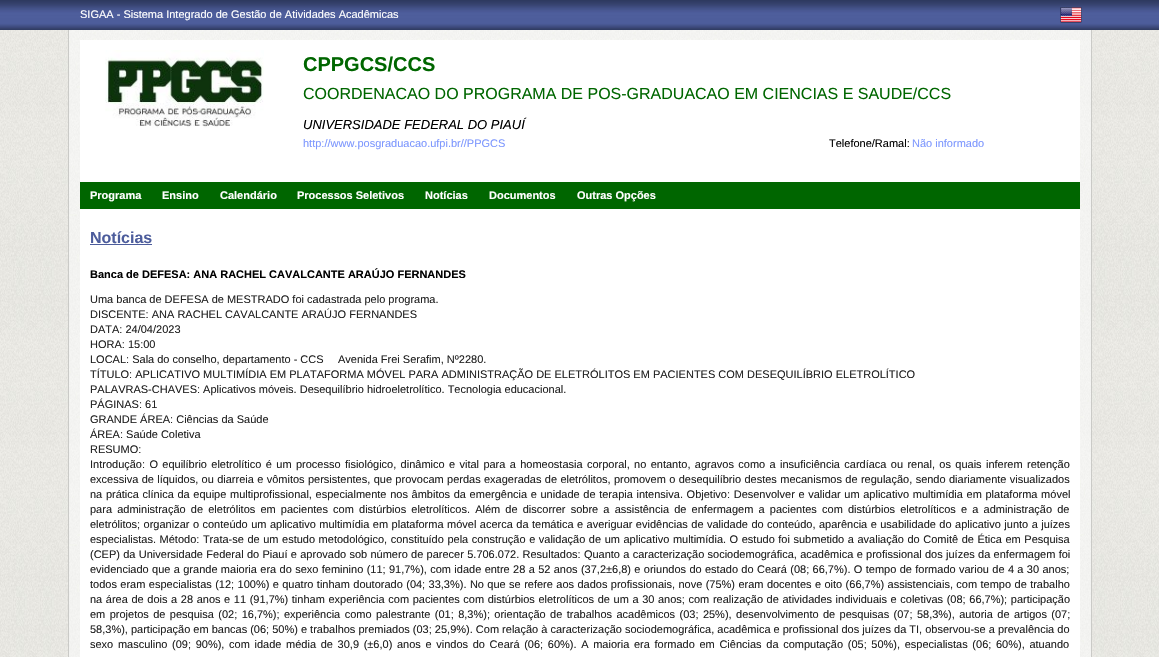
void draw(SkCanvas* canvas) {
    SkPaint paint;
    paint.setAntiAlias(true);
    auto face = [&](const char* family, int weight, float size, bool italic = false) {
        SkFontStyle style(weight, SkFontStyle::kNormal_Width,
            italic ? SkFontStyle::kItalic_Slant : SkFontStyle::kUpright_Slant);
        SkFont result(fontMgr->matchFamilyStyle(family, style), size);
        result.setSubpixel(true);
        return result;
    };
    auto write = [&](const char* s, float x, float y, const SkFont& font, SkColor color) {
        SkPaint ink(SkColor4f::FromColor(color));
        ink.setAntiAlias(true);
        canvas->drawString(s, x, y, font, ink);
    };
    auto writeSpaced = [&](const char* s, float x, float y, const SkFont& font, const SkPaint& ink, float letter, float word) {
        std::vector<SkGlyphID> glyphs(font.countText(s, strlen(s), SkTextEncoding::kUTF8));
        std::vector<float> xs(glyphs.size());
        font.textToGlyphs(s, strlen(s), SkTextEncoding::kUTF8, glyphs);
        font.getXPos(glyphs, xs, x);
        float extra = 0;
        for (size_t i = 0; i < glyphs.size(); i++) {
            xs[i] += extra;
            extra += letter + word * (glyphs[i] == font.unicharToGlyph(' '));
        }
        canvas->drawTextBlob(SkTextBlob::MakeFromPosHGlyphs(glyphs, xs, y, font), 0, 0, ink);
    };
    auto block = [&](float x, float y, float w, float h, SkColor color) {
        SkPaint ink(SkColor4f::FromColor(color));
        ink.setAntiAlias(true);
        canvas->drawRect(SkRect::MakeXYWH(x, y, w, h), ink);
    };
    auto paste = [&](const char* path, float x, float y, float w, float h) {
        auto image = SkImages::DeferredFromEncodedData(SkData::MakeFromFileName(path));
        canvas->drawImageRect(image, SkRect::MakeXYWH(x, y, w, h), SkSamplingOptions());
    };
    canvas->clear(SK_ColorWHITE);
    paste("pic1.png", 0, 30, 1159, 627);
    paste("pic2.png", 0, 0, 1159, 30);
    auto kFont1 = face("Liberation Sans", 400, 11);
    write("SIGAA - Sistema Integrado de Gestão de Atividades Acadêmicas", 80, 18, kFont1, SK_ColorWHITE);
    paste("pic3.png", 1060, 7, 22, 16);
    paste("pic4.png", 69, 30, 1022, 627);
    block(1091, 30, 1, 627, SkColorSetRGB(202, 202, 199));
    block(68, 30, 1, 627, SkColorSetRGB(202, 202, 199));
    block(80, 40, 1000, 617, SK_ColorWHITE);
    paste("pic5.png", 105, 50, 159, 78);
    auto kFont2 = face("Liberation Sans", 700, 20);
    write("CPPGCS/CCS", 303, 71, kFont2, SkColorSetRGB(0, 102, 0));
    auto kFont3 = face("Liberation Sans", 400, 16);
    write("COORDENACAO DO PROGRAMA DE POS-GRADUACAO EM CIENCIAS E SAUDE/CCS", 303, 99, kFont3, SkColorSetRGB(0, 102, 0));
    auto kFont4 = face("Liberation Sans", 400, 13, true);
    write("UNIVERSIDADE FEDERAL DO PIAUÍ", 303, 129, kFont4, SK_ColorBLACK);
    write("http://www.posgraduacao.ufpi.br//PPGCS", 303, 147, kFont1, SkColorSetRGB(125, 151, 254));
    write("Telefone/Ramal:", 829, 147, kFont1, SK_ColorBLACK);
    write("Não informado", 912, 147, kFont1, SkColorSetRGB(125, 151, 254));
    block(80, 182, 1000, 27, SkColorSetRGB(0, 102, 0));
    auto kFont5 = face("Liberation Sans", 700, 11);
    write("Programa", 90, 199, kFont5, SK_ColorWHITE);
    write("Ensino", 162, 199, kFont5, SK_ColorWHITE);
    write("Calendário", 220, 199, kFont5, SK_ColorWHITE);
    write("Processos Seletivos", 297, 199, kFont5, SK_ColorWHITE);
    write("Notícias", 425, 199, kFont5, SK_ColorWHITE);
    write("Documentos", 489, 199, kFont5, SK_ColorWHITE);
    write("Outras Opções", 577, 199, kFont5, SK_ColorWHITE);
    auto kFont6 = face("Liberation Sans", 700, 16);
    write("Notícias", 90, 243, kFont6, SkColorSetRGB(77, 93, 156));
    block(90, 244, 62, 1, SkColorSetRGB(77, 93, 156));
    write("Banca de DEFESA: ANA RACHEL CAVALCANTE ARAÚJO FERNANDES", 90, 278, kFont5, SK_ColorBLACK);
    write("Uma banca de DEFESA de MESTRADO foi cadastrada pelo programa.", 90, 303, kFont1, SkColorSetRGB(34, 34, 34));
    write("DISCENTE: ANA RACHEL CAVALCANTE ARAÚJO FERNANDES", 90, 318, kFont1, SkColorSetRGB(34, 34, 34));
    write("DATA: 24/04/2023", 90, 333, kFont1, SkColorSetRGB(34, 34, 34));
    write("HORA: 15:00", 90, 348, kFont1, SkColorSetRGB(34, 34, 34));
    write("LOCAL: Sala do conselho, departamento - CCS", 90, 363, kFont1, SkColorSetRGB(34, 34, 34));
    write("Avenida Frei Serafim, Nº2280.", 338, 363, kFont1, SkColorSetRGB(34, 34, 34));
    write("TÍTULO: APLICATIVO MULTIMÍDIA EM PLATAFORMA MÓVEL PARA ADMINISTRAÇÃO DE ELETRÓLITOS EM PACIENTES COM DESEQUILÍBRIO ELETROLÍTICO", 90, 378, kFont1, SkColorSetRGB(34, 34, 34));
    write("PALAVRAS-CHAVES: Aplicativos móveis. Desequilíbrio hidroeletrolítico. Tecnologia educacional.", 90, 393, kFont1, SkColorSetRGB(34, 34, 34));
    write("PÁGINAS: 61", 90, 408, kFont1, SkColorSetRGB(34, 34, 34));
    write("GRANDE ÁREA: Ciências da Saúde", 90, 423, kFont1, SkColorSetRGB(34, 34, 34));
    write("ÁREA: Saúde Coletiva", 90, 438, kFont1, SkColorSetRGB(34, 34, 34));
    write("RESUMO:", 90, 453, kFont1, SkColorSetRGB(34, 34, 34));
    paint.setColor(SkColorSetRGB(34, 34, 34));
    writeSpaced("Introdução: O equilíbrio eletrolítico é um processo fisiológico, dinâmico e vital para a homeostasia corporal, no entanto, agravos como a insuficiência cardíaca ou renal, os quais inferem retenção", 90, 468, kFont1, paint, 0, 1.3f);
    writeSpaced("excessiva de líquidos, ou diarreia e vômitos persistentes, que provocam perdas exageradas de eletrólitos, promovem o desequilíbrio destes mecanismos de regulação, sendo diariamente visualizados", 90, 483, kFont1, paint, 0, 0.3f);
    writeSpaced("na prática clínica da equipe multiprofissional, especialmente nos âmbitos da emergência e unidade de terapia intensiva. Objetivo: Desenvolver e validar um aplicativo multimídia em plataforma móvel", 90, 498, kFont1, paint, 0, 0.6f);
    writeSpaced("para administração de eletrólitos em pacientes com distúrbios eletrolíticos. Além de discorrer sobre a assistência de enfermagem a pacientes com distúrbios eletrolíticos e a administração de", 90, 513, kFont1, paint, 0, 2.1f);
    writeSpaced("eletrólitos; organizar o conteúdo um aplicativo multimídia em plataforma móvel acerca da temática e averiguar evidências de validade do conteúdo, aparência e usabilidade do aplicativo junto a juízes", 90, 528, kFont1, paint, 0, 0.4f);
    writeSpaced("especialistas. Método: Trata-se de um estudo metodológico, constituído pela construção e validação de um aplicativo multimídia. O estudo foi submetido a avaliação do Comitê de Ética em Pesquisa", 90, 543, kFont1, paint, 0, 0.5f);
    writeSpaced("(CEP) da Universidade Federal do Piauí e aprovado sob número de parecer 5.706.072. Resultados: Quanto a caracterização sociodemográfica, acadêmica e profissional dos juízes da enfermagem foi", 90, 558, kFont1, paint, 0, 0.25f);
    writeSpaced("evidenciado que a grande maioria era do sexo feminino (11; 91,7%), com idade entre 28 a 52 anos (37,2±6,8) e oriundos do estado do Ceará (08; 66,7%). O tempo de formado variou de 4 a 30 anos;", 90, 573, kFont1, paint, 0, 0.3f);
    writeSpaced("todos eram especialistas (12; 100%) e quatro tinham doutorado (04; 33,3%). No que se refere aos dados profissionais, nove (75%) eram docentes e oito (66,7%) assistenciais, com tempo de trabalho", 90, 588, kFont1, paint, 0, 0.35f);
    writeSpaced("na área de dois a 28 anos e 11 (91,7%) tinham experiência com pacientes com distúrbios eletrolíticos de um a 30 anos; com realização de atividades individuais e coletivas (08; 66,7%); participação", 90, 603, kFont1, paint, 0, 0.55f);
    writeSpaced("em projetos de pesquisa (02; 16,7%); experiência como palestrante (01; 8,3%); orientação de trabalhos acadêmicos (03; 25%), desenvolvimento de pesquisas (07; 58,3%), autoria de artigos (07;", 90, 618, kFont1, paint, 0, 1.35f);
    write("58,3%), participação em bancas (06; 50%) e trabalhos premiados (03; 25,9%). Com relação à caracterização sociodemográfica, acadêmica e profissional dos juízes da TI, observou-se a prevalência do", 90, 633, kFont1, SkColorSetRGB(34, 34, 34));
    writeSpaced("sexo masculino (09; 90%), com idade média de 30,9 (±6,0) anos e vindos do Ceará (06; 60%). A maioria era formado em Ciências da computação (05; 50%), especialistas (06; 60%), atuando", 90, 648, kFont1, paint, 0, 1.6f);
}
